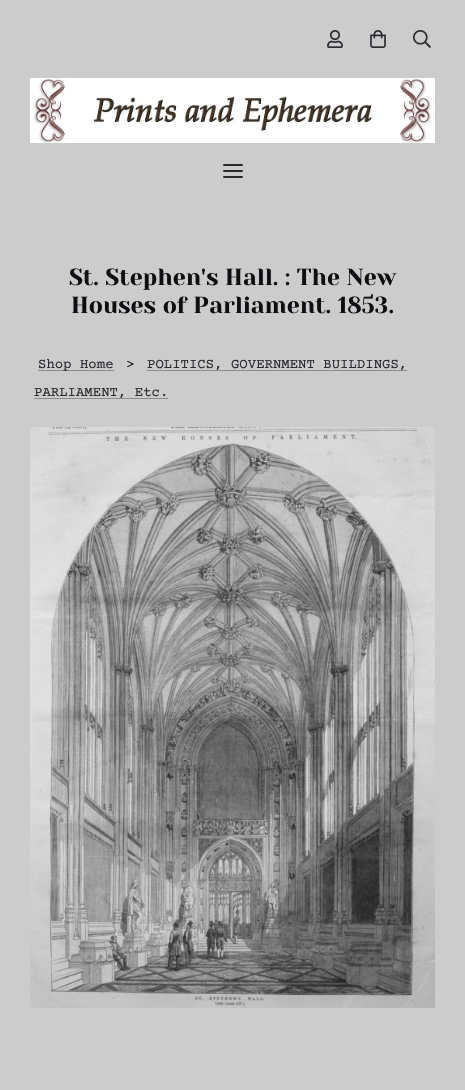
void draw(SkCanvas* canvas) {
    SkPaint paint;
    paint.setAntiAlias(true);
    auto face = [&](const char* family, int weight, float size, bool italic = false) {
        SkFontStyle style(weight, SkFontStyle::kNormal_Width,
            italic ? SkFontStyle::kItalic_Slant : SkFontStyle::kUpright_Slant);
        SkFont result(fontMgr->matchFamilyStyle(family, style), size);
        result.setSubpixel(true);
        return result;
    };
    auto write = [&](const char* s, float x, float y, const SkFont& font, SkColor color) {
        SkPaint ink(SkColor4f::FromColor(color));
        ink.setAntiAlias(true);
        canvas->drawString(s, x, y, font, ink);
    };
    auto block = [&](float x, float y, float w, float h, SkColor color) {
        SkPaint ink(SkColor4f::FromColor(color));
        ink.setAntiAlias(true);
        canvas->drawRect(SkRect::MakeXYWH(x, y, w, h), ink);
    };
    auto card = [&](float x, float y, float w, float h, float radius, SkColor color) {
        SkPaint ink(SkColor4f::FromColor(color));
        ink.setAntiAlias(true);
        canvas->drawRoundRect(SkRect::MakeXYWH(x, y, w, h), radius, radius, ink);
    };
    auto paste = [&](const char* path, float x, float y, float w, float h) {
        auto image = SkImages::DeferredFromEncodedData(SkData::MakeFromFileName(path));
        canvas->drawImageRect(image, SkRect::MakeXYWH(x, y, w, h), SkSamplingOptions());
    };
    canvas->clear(SkColorSetRGB(204, 204, 204));
    paste("pic1.png", 327, 30, 16, 18);
    paste("pic2.png", 370, 30, 16, 18);
    paste("pic3.png", 413, 30, 18, 18);
    paste("pic4.png", 30, 78, 405, 65);
    card(223, 170, 20, 2, 1, SkColorSetRGB(40, 43, 48));
    card(223, 164, 20, 2, 1, SkColorSetRGB(40, 43, 48));
    card(223, 176, 20, 2, 1, SkColorSetRGB(40, 43, 48));
    auto kFont1 = face("Yeseva One", 400, 23.25f);
    write("St. Stephen's Hall. : The New", 69, 285, kFont1, SkColorSetRGB(14, 15, 18));
    write("Houses of Parliament. 1853.", 71, 313, kFont1, SkColorSetRGB(14, 15, 18));
    block(38, 370, 76, 1, SkColorSetRGB(138, 140, 142));
    auto kFont2 = face("Courier Prime", 400, 14);
    write("Shop Home", 38, 368, kFont2, SkColorSetRGB(40, 43, 48));
    write(">", 126, 368, kFont2, SkColorSetRGB(14, 15, 18));
    write("POLITICS, GOVERNMENT BUILDINGS,", 147, 368, kFont2, SkColorSetRGB(40, 43, 48));
    block(147, 370, 260, 1, SkColorSetRGB(138, 140, 142));
    write("PARLIAMENT, Etc.", 34, 396, kFont2, SkColorSetRGB(40, 43, 48));
    block(34, 398, 134, 1, SkColorSetRGB(138, 140, 142));
    paste("pic5.png", 30, 427, 405, 581);
}
